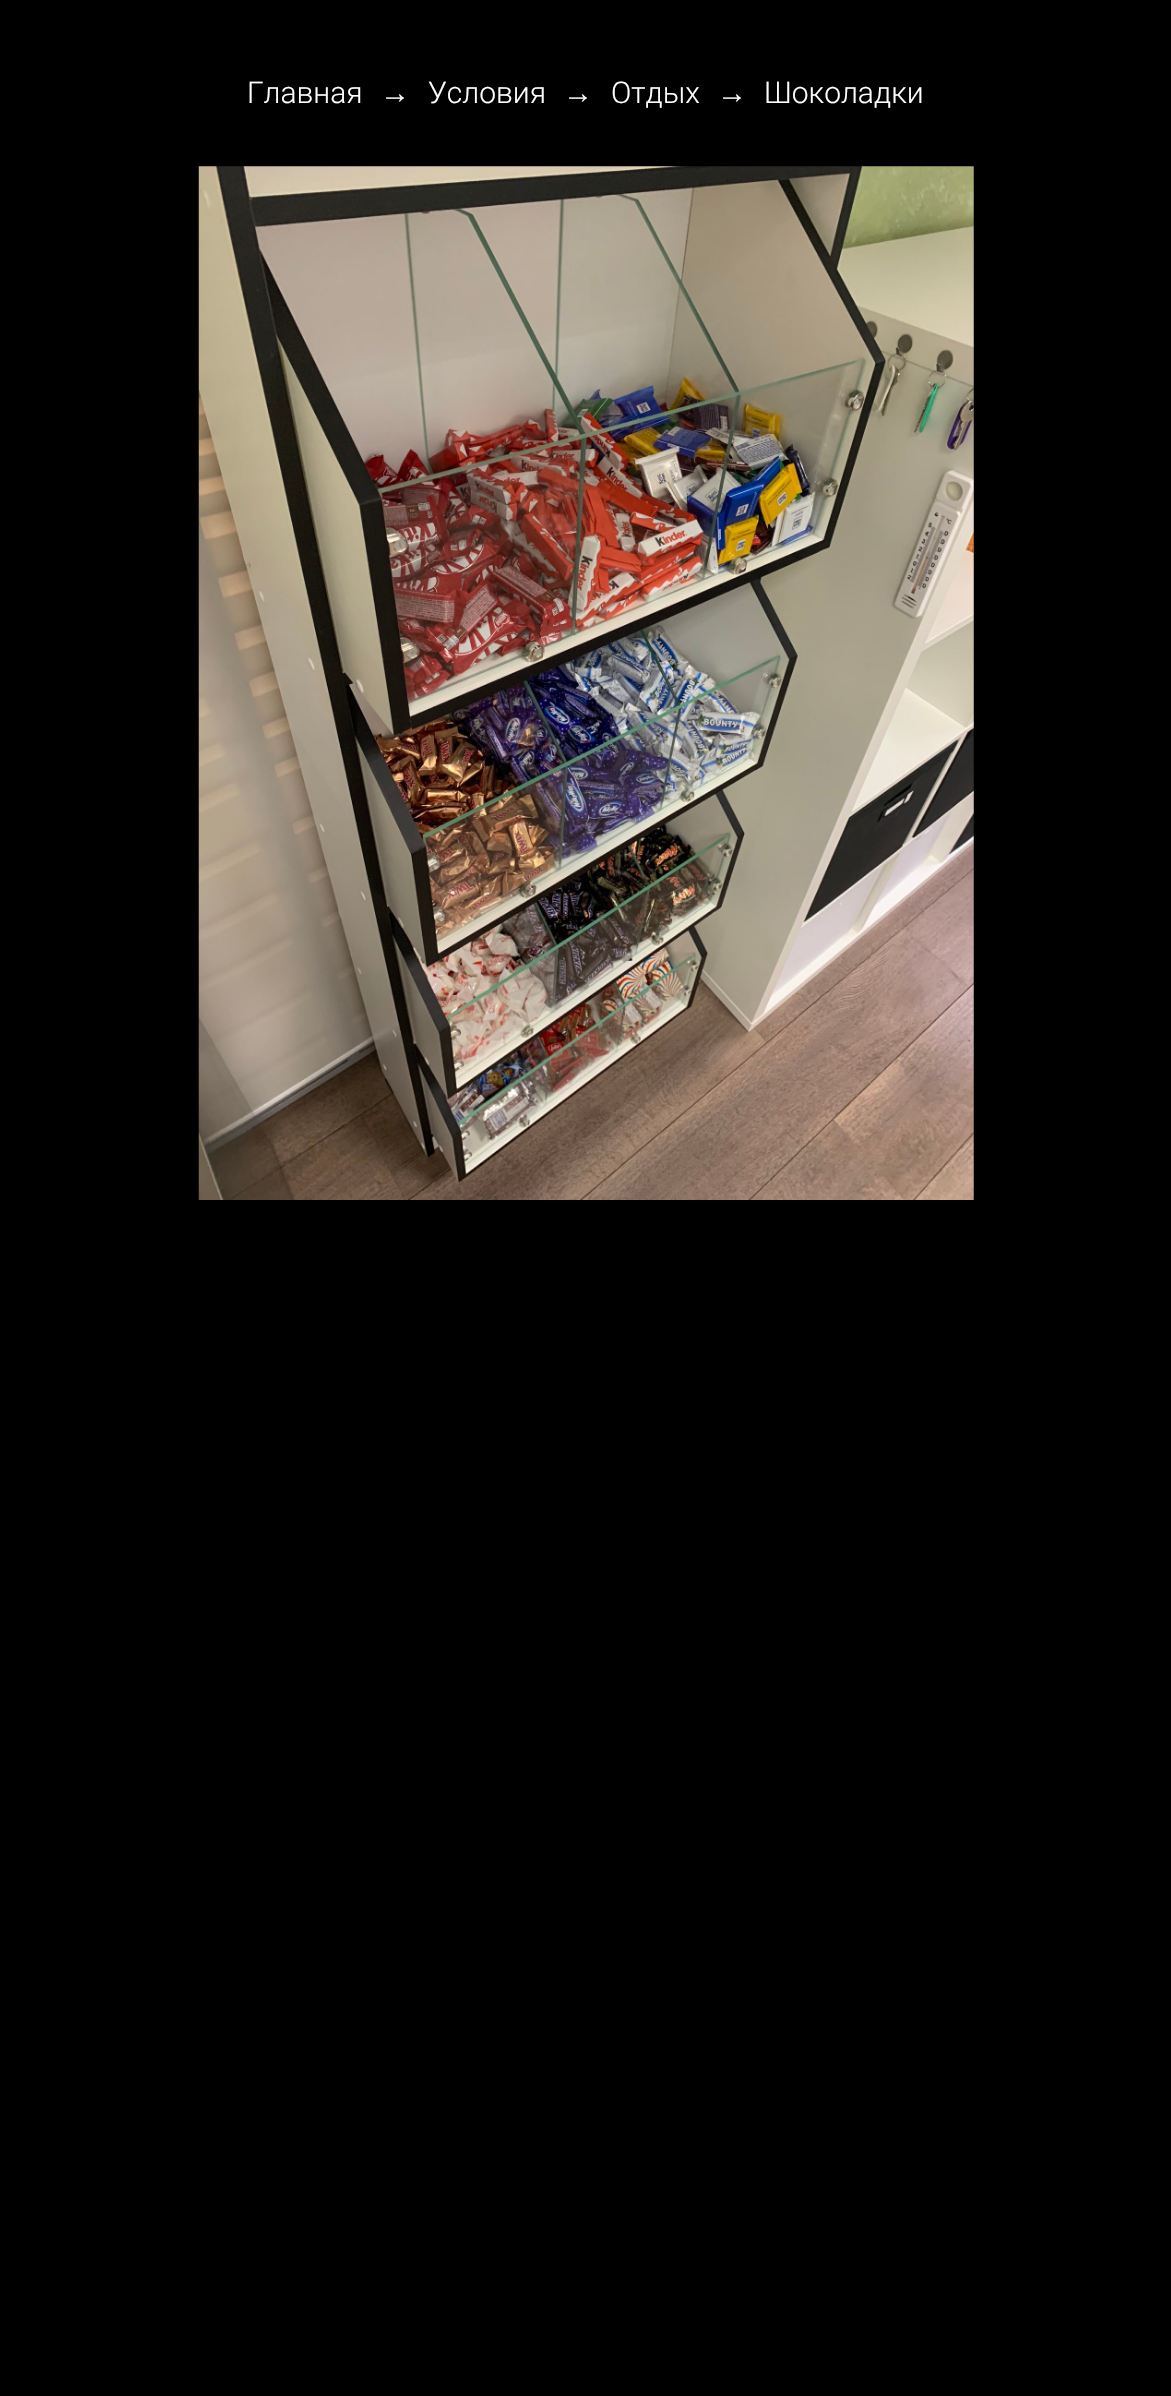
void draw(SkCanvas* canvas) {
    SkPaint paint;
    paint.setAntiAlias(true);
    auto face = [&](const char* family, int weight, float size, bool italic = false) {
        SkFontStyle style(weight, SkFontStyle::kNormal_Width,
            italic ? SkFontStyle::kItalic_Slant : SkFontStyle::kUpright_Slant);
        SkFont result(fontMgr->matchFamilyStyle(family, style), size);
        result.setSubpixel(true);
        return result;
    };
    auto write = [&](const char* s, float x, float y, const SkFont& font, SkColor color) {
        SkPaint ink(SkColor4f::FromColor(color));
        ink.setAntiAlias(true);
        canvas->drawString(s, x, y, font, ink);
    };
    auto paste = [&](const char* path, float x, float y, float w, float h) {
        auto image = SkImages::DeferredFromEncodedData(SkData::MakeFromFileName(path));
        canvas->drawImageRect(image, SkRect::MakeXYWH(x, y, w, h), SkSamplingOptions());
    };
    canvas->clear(SK_ColorBLACK);
    auto kFont1 = face("Roboto", 300, 30);
    write("Главная", 247, 103, kFont1, SK_ColorWHITE);
    auto kFont2 = face("Liberation Sans", 400, 30);
    write("→", 380, 103, kFont2, SK_ColorWHITE);
    write("Условия", 428, 103, kFont1, SK_ColorWHITE);
    write("→", 563, 103, kFont2, SK_ColorWHITE);
    write("Отдых", 611, 103, kFont1, SK_ColorWHITE);
    write("→", 717, 103, kFont2, SK_ColorWHITE);
    write("Шоколадки", 764, 103, kFont1, SK_ColorWHITE);
    paste("pic1.png", 198, 166, 776, 1034);
}
